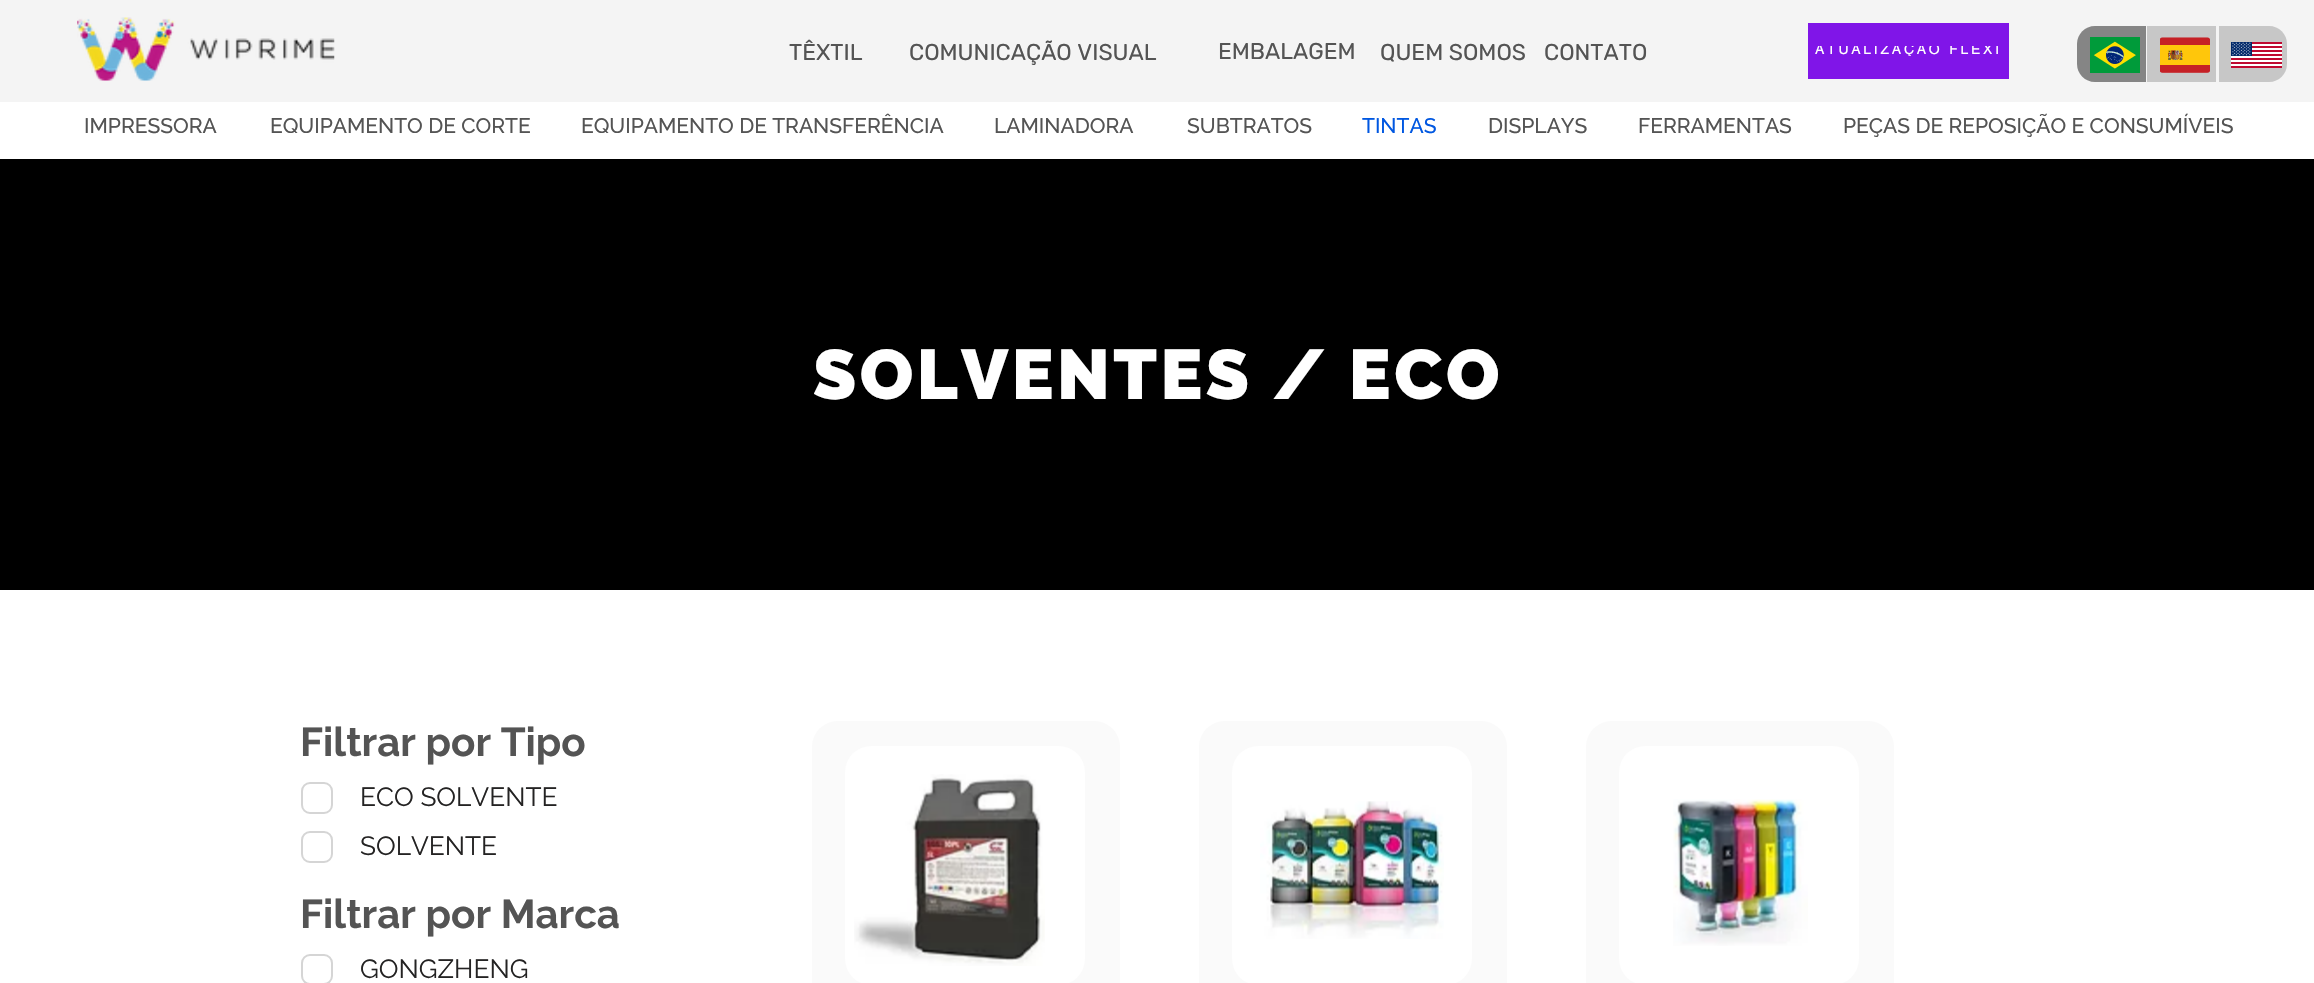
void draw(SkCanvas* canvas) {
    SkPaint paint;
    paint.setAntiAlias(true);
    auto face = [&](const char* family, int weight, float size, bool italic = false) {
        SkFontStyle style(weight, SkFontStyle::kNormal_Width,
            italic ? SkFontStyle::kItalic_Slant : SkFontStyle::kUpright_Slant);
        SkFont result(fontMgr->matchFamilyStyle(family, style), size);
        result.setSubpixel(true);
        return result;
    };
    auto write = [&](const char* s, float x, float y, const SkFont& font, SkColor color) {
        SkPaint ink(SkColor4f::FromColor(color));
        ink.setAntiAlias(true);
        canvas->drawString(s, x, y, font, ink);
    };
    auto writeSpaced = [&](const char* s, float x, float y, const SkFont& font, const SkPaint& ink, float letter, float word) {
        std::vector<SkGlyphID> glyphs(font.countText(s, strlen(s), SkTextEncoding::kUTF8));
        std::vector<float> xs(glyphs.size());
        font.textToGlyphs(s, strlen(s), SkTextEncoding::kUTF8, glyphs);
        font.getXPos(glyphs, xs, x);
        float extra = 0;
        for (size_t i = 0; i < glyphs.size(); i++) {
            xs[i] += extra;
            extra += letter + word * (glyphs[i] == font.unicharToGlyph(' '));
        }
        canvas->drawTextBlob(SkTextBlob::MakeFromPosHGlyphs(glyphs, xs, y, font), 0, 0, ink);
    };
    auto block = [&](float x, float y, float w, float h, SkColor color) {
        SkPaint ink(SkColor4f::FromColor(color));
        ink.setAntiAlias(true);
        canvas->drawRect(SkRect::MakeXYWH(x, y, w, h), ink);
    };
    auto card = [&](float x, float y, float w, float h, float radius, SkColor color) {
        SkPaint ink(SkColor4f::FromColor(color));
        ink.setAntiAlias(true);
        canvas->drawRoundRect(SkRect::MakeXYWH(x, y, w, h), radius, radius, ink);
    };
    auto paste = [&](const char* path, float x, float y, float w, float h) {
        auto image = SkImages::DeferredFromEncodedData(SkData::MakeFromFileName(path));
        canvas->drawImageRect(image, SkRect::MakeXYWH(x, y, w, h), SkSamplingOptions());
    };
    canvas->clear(SK_ColorWHITE);
    block(0, 0, 2314, 102, SkColorSetRGB(244, 244, 244));
    paste("pic1.png", 77, 17, 258, 64);
    auto kFont1 = face("Rubik", 400, 22.75f);
    write("TÊXTIL", 789, 60, kFont1, SkColorSetRGB(84, 84, 84));
    write("COMUNICAÇÃO VISUAL", 909, 60, kFont1, SkColorSetRGB(84, 84, 84));
    write("EMBALAGEM", 1218, 59, kFont1, SkColorSetRGB(84, 84, 84));
    write("QUEM SOMOS", 1380, 60, kFont1, SkColorSetRGB(84, 84, 84));
    write("CONTATO", 1544, 60, kFont1, SkColorSetRGB(84, 84, 84));
    block(1808, 23, 201, 56, SkColorSetRGB(128, 21, 232));
    canvas->save();
    canvas->clipRect(SkRect::MakeXYWH(1815, 46, 187, 10));
    auto kFont2 = face("helvetica", 400, 14);
    paint.setColor(SK_ColorWHITE);
    writeSpaced("ATUALIZAÇÃO FLEXI", 1815, 54, kFont2, paint, 2.75f, 0);
    canvas->restore();
    paint.setColor(SkColorSetRGB(133, 133, 133));
    canvas->drawPath(SkPathBuilder().moveTo(2095, 26).lineTo(2146, 26).lineTo(2146, 82).lineTo(2095, 82).cubicTo(2085, 82, 2077, 74, 2077, 64).lineTo(2077, 44).cubicTo(2077, 34, 2085, 26, 2095, 26).close().detach(), paint);
    paste("pic2.png", 2090, 37, 50, 36);
    block(2147, 26, 69, 56, SkColorSetRGB(199, 199, 199));
    paste("pic3.png", 2160, 37, 50, 36);
    paint.setColor(SkColorSetRGB(199, 199, 199));
    canvas->drawPath(SkPathBuilder().moveTo(2219, 26).lineTo(2269, 26).cubicTo(2279, 26, 2287, 34, 2287, 44).lineTo(2287, 64).cubicTo(2287, 74, 2279, 82, 2269, 82).lineTo(2219, 82).close().detach(), paint);
    paste("pic4.png", 2231, 42, 51, 26);
    auto kFont3 = face("Raleway", 500, 21);
    write("IMPRESSORA", 84, 133, kFont3, SkColorSetRGB(84, 84, 84));
    write("EQUIPAMENTO DE CORTE", 270, 133, kFont3, SkColorSetRGB(84, 84, 84));
    write("EQUIPAMENTO DE TRANSFERÊNCIA", 581, 133, kFont3, SkColorSetRGB(84, 84, 84));
    write("LAMINADORA", 994, 133, kFont3, SkColorSetRGB(84, 84, 84));
    write("SUBTRATOS", 1187, 133, kFont3, SkColorSetRGB(84, 84, 84));
    write("TINTAS", 1362, 133, kFont3, SkColorSetRGB(0, 87, 225));
    write("DISPLAYS", 1488, 133, kFont3, SkColorSetRGB(84, 84, 84));
    write("FERRAMENTAS", 1638, 133, kFont3, SkColorSetRGB(84, 84, 84));
    write("PEÇAS DE REPOSIÇÃO E CONSUMÍVEIS", 1843, 133, kFont3, SkColorSetRGB(84, 84, 84));
    block(0, 159, 2314, 431, SK_ColorBLACK);
    auto kFont4 = face("Raleway", 900, 70);
    paint.setColor(SK_ColorWHITE);
    writeSpaced("SOLVENTES / ECO", 813, 399, kFont4, paint, 3.5f, 0);
    auto kFont5 = face("Raleway", 700, 40.25f);
    write("Filtrar por Tipo", 300, 756, kFont5, SkColorSetRGB(84, 84, 84));
    paint.setStyle(SkPaint::kStroke_Style);
    paint.setStrokeWidth(2);
    paint.setColor(SkColorSetRGB(213, 213, 213));
    canvas->drawRoundRect(SkRect::MakeXYWH(302, 783, 30, 30), 8, 8, paint);
    auto kFont6 = face("Raleway", 400, 26.25f);
    write("ECO SOLVENTE", 360, 806, kFont6, SkColorSetRGB(36, 35, 35));
    canvas->drawRoundRect(SkRect::MakeXYWH(302, 832, 30, 30), 8, 8, paint);
    write("SOLVENTE", 360, 855, kFont6, SkColorSetRGB(36, 35, 35));
    card(812, 721, 308, 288, 26, SkColorSetRGB(250, 250, 250));
    card(845, 746, 240, 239, 26, SK_ColorWHITE);
    paste("pic5.png", 854, 774, 191, 192);
    card(1199, 721, 308, 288, 26, SkColorSetRGB(250, 250, 250));
    card(1232, 746, 240, 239, 26, SK_ColorWHITE);
    paste("pic6.png", 1260, 801, 184, 138);
    card(1586, 721, 308, 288, 26, SkColorSetRGB(250, 250, 250));
    card(1619, 746, 240, 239, 26, SK_ColorWHITE);
    paste("pic7.png", 1673, 799, 135, 147);
    write("Filtrar por Marca", 300, 928, kFont5, SkColorSetRGB(84, 84, 84));
    canvas->drawRoundRect(SkRect::MakeXYWH(302, 955, 30, 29), 8, 8, paint);
    write("GONGZHENG", 360, 978, kFont6, SkColorSetRGB(36, 35, 35));
}
